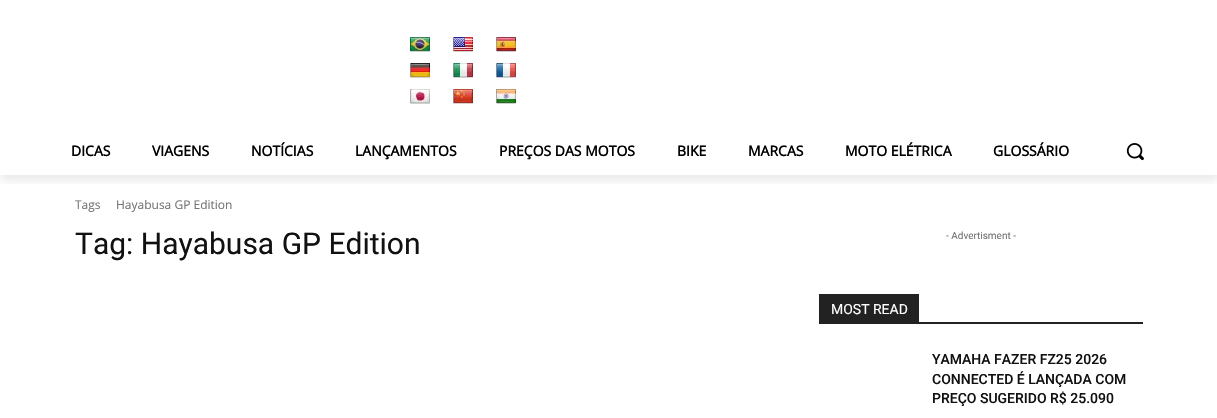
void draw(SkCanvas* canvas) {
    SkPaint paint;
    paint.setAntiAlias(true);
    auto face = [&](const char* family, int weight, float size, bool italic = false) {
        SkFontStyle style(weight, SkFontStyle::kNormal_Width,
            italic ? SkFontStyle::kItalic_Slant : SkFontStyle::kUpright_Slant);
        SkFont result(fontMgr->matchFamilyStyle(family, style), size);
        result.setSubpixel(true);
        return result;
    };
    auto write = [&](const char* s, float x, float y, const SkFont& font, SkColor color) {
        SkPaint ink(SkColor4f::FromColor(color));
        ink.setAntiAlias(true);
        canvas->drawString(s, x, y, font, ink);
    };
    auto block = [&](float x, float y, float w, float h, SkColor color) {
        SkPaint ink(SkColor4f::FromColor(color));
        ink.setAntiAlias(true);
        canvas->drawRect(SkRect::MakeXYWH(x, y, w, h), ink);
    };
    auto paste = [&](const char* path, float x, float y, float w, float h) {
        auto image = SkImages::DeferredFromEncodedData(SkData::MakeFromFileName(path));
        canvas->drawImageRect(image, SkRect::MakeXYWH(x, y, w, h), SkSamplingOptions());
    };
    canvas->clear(SK_ColorWHITE);
    paste("pic1.png", 410, 37, 20, 15);
    paste("pic2.png", 453, 37, 20, 15);
    paste("pic3.png", 496, 37, 20, 15);
    paste("pic4.png", 410, 63, 20, 15);
    paste("pic5.png", 453, 63, 20, 15);
    paste("pic6.png", 496, 63, 20, 15);
    paste("pic7.png", 410, 89, 20, 15);
    paste("pic8.png", 453, 89, 20, 15);
    paste("pic9.png", 496, 89, 20, 15);
    canvas->save();
    canvas->clipRect(SkRect::MakeXYWH(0, 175, 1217, 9));
    paint.setColor(SkColorSetARGB(20, 0, 0, 0));
    paint.setMaskFilter(SkMaskFilter::MakeBlur(kNormal_SkBlurStyle, 4));
    canvas->drawRect(SkRect::MakeXYWH(1, 6, 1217, 175), paint);
    paint.setMaskFilter(nullptr);
    canvas->restore();
    auto kFont1 = face("Open Sans", 700, 14);
    write("DICAS", 71, 156, kFont1, SK_ColorBLACK);
    write("VIAGENS", 152, 156, kFont1, SK_ColorBLACK);
    write("NOTÍCIAS", 251, 156, kFont1, SK_ColorBLACK);
    write("LANÇAMENTOS", 355, 156, kFont1, SK_ColorBLACK);
    write("PREÇOS DAS MOTOS", 499, 156, kFont1, SK_ColorBLACK);
    write("BIKE", 677, 156, kFont1, SK_ColorBLACK);
    write("MARCAS", 748, 156, kFont1, SK_ColorBLACK);
    write("MOTO ELÉTRICA", 845, 156, kFont1, SK_ColorBLACK);
    write("GLOSSÁRIO", 993, 156, kFont1, SK_ColorBLACK);
    paste("pic10.png", 1126, 143, 18, 18);
    auto kFont2 = face("Open Sans", 400, 12);
    write("Tags", 75, 209, kFont2, SkColorSetRGB(116, 116, 116));
    write("Hayabusa GP Edition", 116, 209, kFont2, SkColorSetRGB(116, 116, 116));
    auto kFont3 = face("Roboto", 400, 30);
    write("Tag: Hayabusa GP Edition", 75, 254, kFont3, SkColorSetRGB(17, 17, 17));
    auto kFont4 = face("Roboto", 400, 10);
    write("- Advertisment -", 946, 239, kFont4, SkColorSetRGB(116, 116, 116));
    block(819, 322, 324, 2, SkColorSetRGB(34, 34, 34));
    block(819, 294, 100, 28, SkColorSetRGB(34, 34, 34));
    auto kFont5 = face("Roboto", 400, 14);
    write("MOST READ", 831, 314, kFont5, SK_ColorWHITE);
    auto kFont6 = face("Roboto", 500, 14);
    write("YAMAHA FAZER FZ25 2026", 932, 364, kFont6, SkColorSetRGB(17, 17, 17));
    write("CONNECTED É LANÇADA COM", 932, 384, kFont6, SkColorSetRGB(17, 17, 17));
    write("PREÇO SUGERIDO R$ 25.090", 932, 403, kFont6, SkColorSetRGB(17, 17, 17));
}
